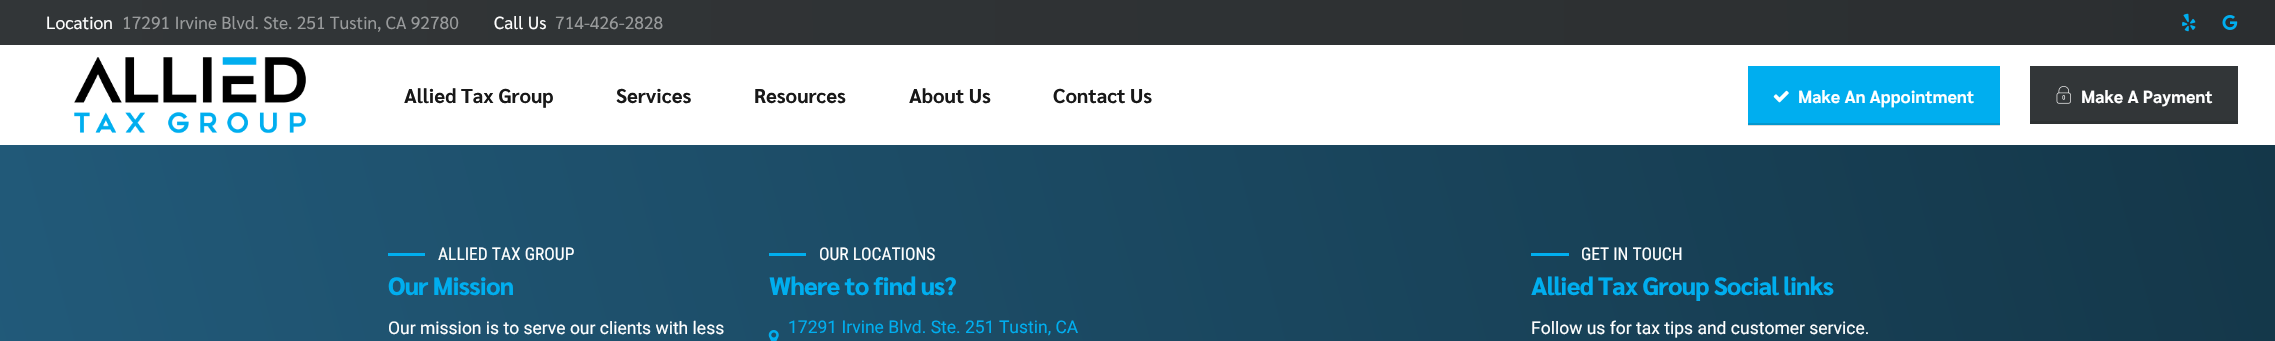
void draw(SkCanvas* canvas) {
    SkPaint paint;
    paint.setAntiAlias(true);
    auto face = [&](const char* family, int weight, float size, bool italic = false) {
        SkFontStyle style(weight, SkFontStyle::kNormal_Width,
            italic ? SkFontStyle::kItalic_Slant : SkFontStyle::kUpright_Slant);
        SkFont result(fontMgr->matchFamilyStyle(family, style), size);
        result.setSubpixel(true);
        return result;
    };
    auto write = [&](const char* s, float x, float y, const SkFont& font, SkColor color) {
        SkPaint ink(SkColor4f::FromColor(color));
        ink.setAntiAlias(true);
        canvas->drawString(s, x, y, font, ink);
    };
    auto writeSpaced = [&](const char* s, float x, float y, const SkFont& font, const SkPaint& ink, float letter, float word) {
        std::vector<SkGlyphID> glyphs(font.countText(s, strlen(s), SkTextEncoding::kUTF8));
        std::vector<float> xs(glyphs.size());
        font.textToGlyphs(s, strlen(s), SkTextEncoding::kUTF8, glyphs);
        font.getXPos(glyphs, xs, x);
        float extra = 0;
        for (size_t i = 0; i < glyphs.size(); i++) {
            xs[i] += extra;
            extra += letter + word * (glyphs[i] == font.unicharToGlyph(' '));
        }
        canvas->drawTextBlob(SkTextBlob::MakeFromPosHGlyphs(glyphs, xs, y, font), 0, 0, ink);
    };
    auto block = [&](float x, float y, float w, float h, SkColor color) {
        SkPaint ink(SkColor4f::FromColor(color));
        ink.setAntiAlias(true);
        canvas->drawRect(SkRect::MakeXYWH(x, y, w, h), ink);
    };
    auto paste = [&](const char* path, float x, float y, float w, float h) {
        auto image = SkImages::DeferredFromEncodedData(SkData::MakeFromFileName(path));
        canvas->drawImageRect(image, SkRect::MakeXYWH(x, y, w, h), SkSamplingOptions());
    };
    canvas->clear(SK_ColorWHITE);
    block(1748, 125, 252, 1, SkColorSetRGB(220, 220, 220));
    {
        const SkColor colors[] = {SkColorSetRGB(50, 54, 56), SkColorSetRGB(43, 46, 48)};
        const float stops[] = {0, 1};
        const SkPoint ends[] = {{0, 23}, {2275, 22}};
        paint.setShader(SkGradientShader::MakeLinear(ends, colors, stops, 2, SkTileMode::kClamp));
        paint.setAlpha(255);
    }
    canvas->drawRect(SkRect::MakeXYWH(0, 0, 2275, 45), paint);
    auto kFont1 = face("Sarabun", 400, 17.5f);
    write("Location", 46, 29, kFont1, SK_ColorWHITE);
    write("17291 Irvine Blvd. Ste. 251 Tustin, CA 92780", 122, 29, kFont1, SkColorSetRGB(152, 154, 155));
    write("Call Us", 494, 29, kFont1, SK_ColorWHITE);
    write("714-426-2828", 555, 29, kFont1, SkColorSetRGB(152, 154, 155));
    paste("pic1.png", 2182, 13, 14, 19);
    paste("pic2.png", 2222, 15, 16, 15);
    paste("pic3.png", 74, 57, 232, 77);
    auto kFont2 = face("Sarabun", 700, 20);
    write("Allied Tax Group", 404, 103, kFont2, SkColorSetRGB(24, 24, 24));
    write("Services", 616, 103, kFont2, SkColorSetRGB(24, 24, 24));
    write("Resources", 754, 103, kFont2, SkColorSetRGB(24, 24, 24));
    write("About Us", 909, 103, kFont2, SkColorSetRGB(24, 24, 24));
    write("Contact Us", 1053, 103, kFont2, SkColorSetRGB(24, 24, 24));
    block(1748, 66, 252, 57, SkColorSetRGB(0, 174, 239));
    block(1748, 123, 252, 2, SkColorSetRGB(4, 152, 207));
    paste("pic4.png", 1773, 90, 16, 13);
    auto kFont3 = face("Sarabun", 700, 17.5f);
    write("Make An Appointment", 1798, 103, kFont3, SK_ColorWHITE);
    block(2030, 66, 208, 55, SkColorSetRGB(50, 54, 56));
    block(2030, 121, 208, 3, SkColorSetRGB(46, 50, 51));
    paste("pic5.png", 2056, 86, 15, 18);
    write("Make A Payment", 2081, 103, kFont3, SK_ColorWHITE);
    {
        const SkColor colors[] = {SkColorSetRGB(34, 91, 123), SkColorSetRGB(20, 55, 73)};
        const float stops[] = {0, 1};
        const SkPoint ends[] = {{7.9f, 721}, {2267, 115}};
        paint.setShader(SkGradientShader::MakeLinear(ends, colors, stops, 2, SkTileMode::kClamp));
        paint.setAlpha(255);
    }
    canvas->drawRect(SkRect::MakeXYWH(0, 145, 2275, 196), paint);
    block(388, 253, 37, 3, SkColorSetRGB(0, 174, 239));
    auto kFont4 = face("Roboto Condensed", 400, 17.5f);
    write("ALLIED TAX GROUP", 438, 260, kFont4, SK_ColorWHITE);
    auto kFont5 = face("Sarabun", 800, 25);
    paint.setShader(nullptr);
    paint.setColor(SkColorSetRGB(0, 174, 239));
    writeSpaced("Our Mission", 388, 295, kFont5, paint, -0.75f, 0);
    auto kFont6 = face("Roboto", 400, 17.5f);
    write("Our mission is to serve our clients with less", 388, 334, kFont6, SK_ColorWHITE);
    block(769, 253, 37, 3, SkColorSetRGB(0, 174, 239));
    write("OUR LOCATIONS", 819, 260, kFont4, SK_ColorWHITE);
    writeSpaced("Where to find us?", 769, 295, kFont5, paint, -0.75f, 0);
    paste("pic6.png", 768, 330, 11, 11);
    write("17291 Irvine Blvd. Ste. 251 Tustin, CA", 788, 333, kFont6, SkColorSetRGB(0, 174, 239));
    block(1531, 253, 38, 3, SkColorSetRGB(0, 174, 239));
    write("GET IN TOUCH", 1581, 260, kFont4, SK_ColorWHITE);
    writeSpaced("Allied Tax Group Social links", 1531, 295, kFont5, paint, -0.75f, 0);
    write("Follow us for tax tips and customer service.", 1531, 334, kFont6, SK_ColorWHITE);
}
